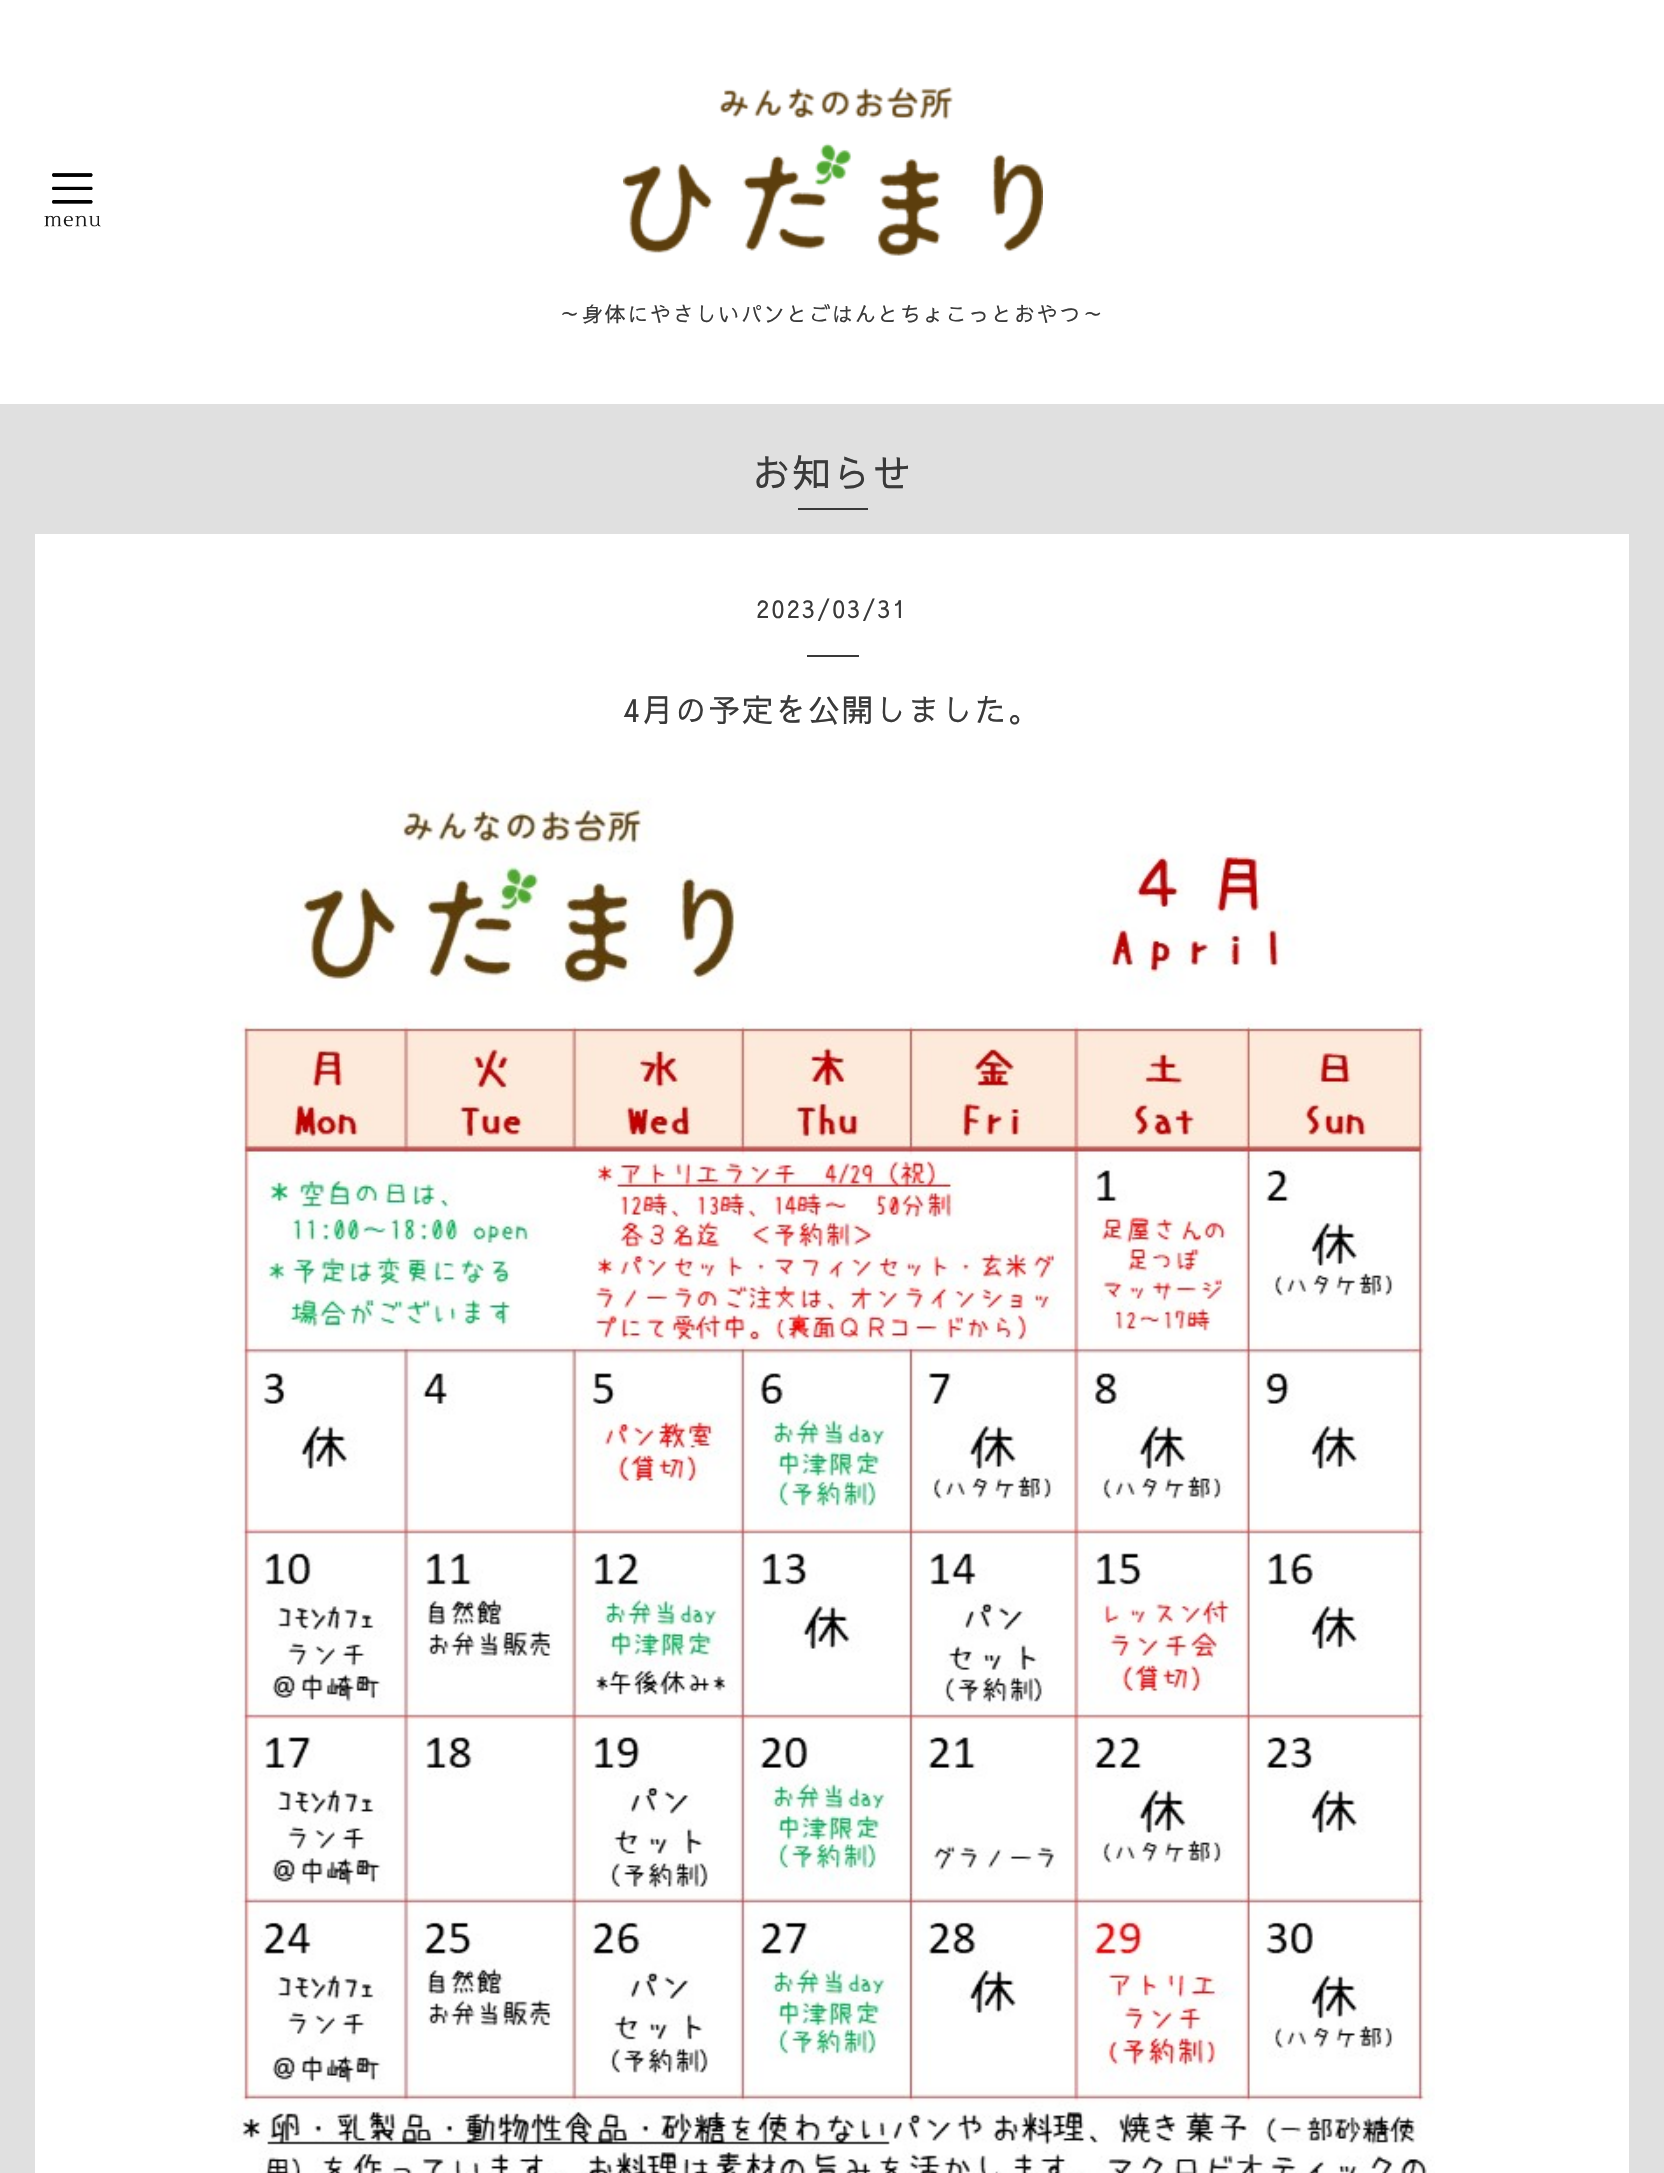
void draw(SkCanvas* canvas) {
    SkPaint paint;
    paint.setAntiAlias(true);
    auto face = [&](const char* family, int weight, float size, bool italic = false) {
        SkFontStyle style(weight, SkFontStyle::kNormal_Width,
            italic ? SkFontStyle::kItalic_Slant : SkFontStyle::kUpright_Slant);
        SkFont result(fontMgr->matchFamilyStyle(family, style), size);
        result.setSubpixel(true);
        return result;
    };
    auto writeSpaced = [&](const char* s, float x, float y, const SkFont& font, const SkPaint& ink, float letter, float word) {
        std::vector<SkGlyphID> glyphs(font.countText(s, strlen(s), SkTextEncoding::kUTF8));
        std::vector<float> xs(glyphs.size());
        font.textToGlyphs(s, strlen(s), SkTextEncoding::kUTF8, glyphs);
        font.getXPos(glyphs, xs, x);
        float extra = 0;
        for (size_t i = 0; i < glyphs.size(); i++) {
            xs[i] += extra;
            extra += letter + word * (glyphs[i] == font.unicharToGlyph(' '));
        }
        canvas->drawTextBlob(SkTextBlob::MakeFromPosHGlyphs(glyphs, xs, y, font), 0, 0, ink);
    };
    auto block = [&](float x, float y, float w, float h, SkColor color) {
        SkPaint ink(SkColor4f::FromColor(color));
        ink.setAntiAlias(true);
        canvas->drawRect(SkRect::MakeXYWH(x, y, w, h), ink);
    };
    auto paste = [&](const char* path, float x, float y, float w, float h) {
        auto image = SkImages::DeferredFromEncodedData(SkData::MakeFromFileName(path));
        canvas->drawImageRect(image, SkRect::MakeXYWH(x, y, w, h), SkSamplingOptions());
    };
    canvas->clear(SK_ColorWHITE);
    paste("pic1.png", 44, 173, 57, 54);
    paste("pic2.png", 623, 87, 420, 169);
    auto kFont1 = face("Sawarabi Gothic", 400, 21);
    paint.setColor(SkColorSetRGB(58, 58, 58));
    writeSpaced("～身体にやさしいパンとごはんとちょこっとおやつ～", 559, 322, kFont1, paint, 1.75f, 0);
    block(0, 404, 1664, 1769, SkColorSetRGB(224, 224, 224));
    auto kFont2 = face("Sawarabi Gothic", 400, 38.5f);
    writeSpaced("お知らせ", 752, 488, kFont2, paint, 1.75f, 0);
    block(798, 508, 70, 2, SkColorSetRGB(58, 58, 58));
    block(35, 534, 1594, 1639, SK_ColorWHITE);
    auto kFont3 = face("Sawarabi Gothic", 400, 24.5f);
    writeSpaced("2023/03/31", 756, 618, kFont3, paint, 1.75f, 0);
    block(807, 655, 52, 2, SkColorSetRGB(58, 58, 58));
    auto kFont4 = face("Sawarabi Gothic", 400, 31.5f);
    writeSpaced("4月の予定を公開しました。", 623, 722, kFont4, paint, 1.75f, 0);
    paste("pic3.png", 231, 797, 1204, 1376);
}
